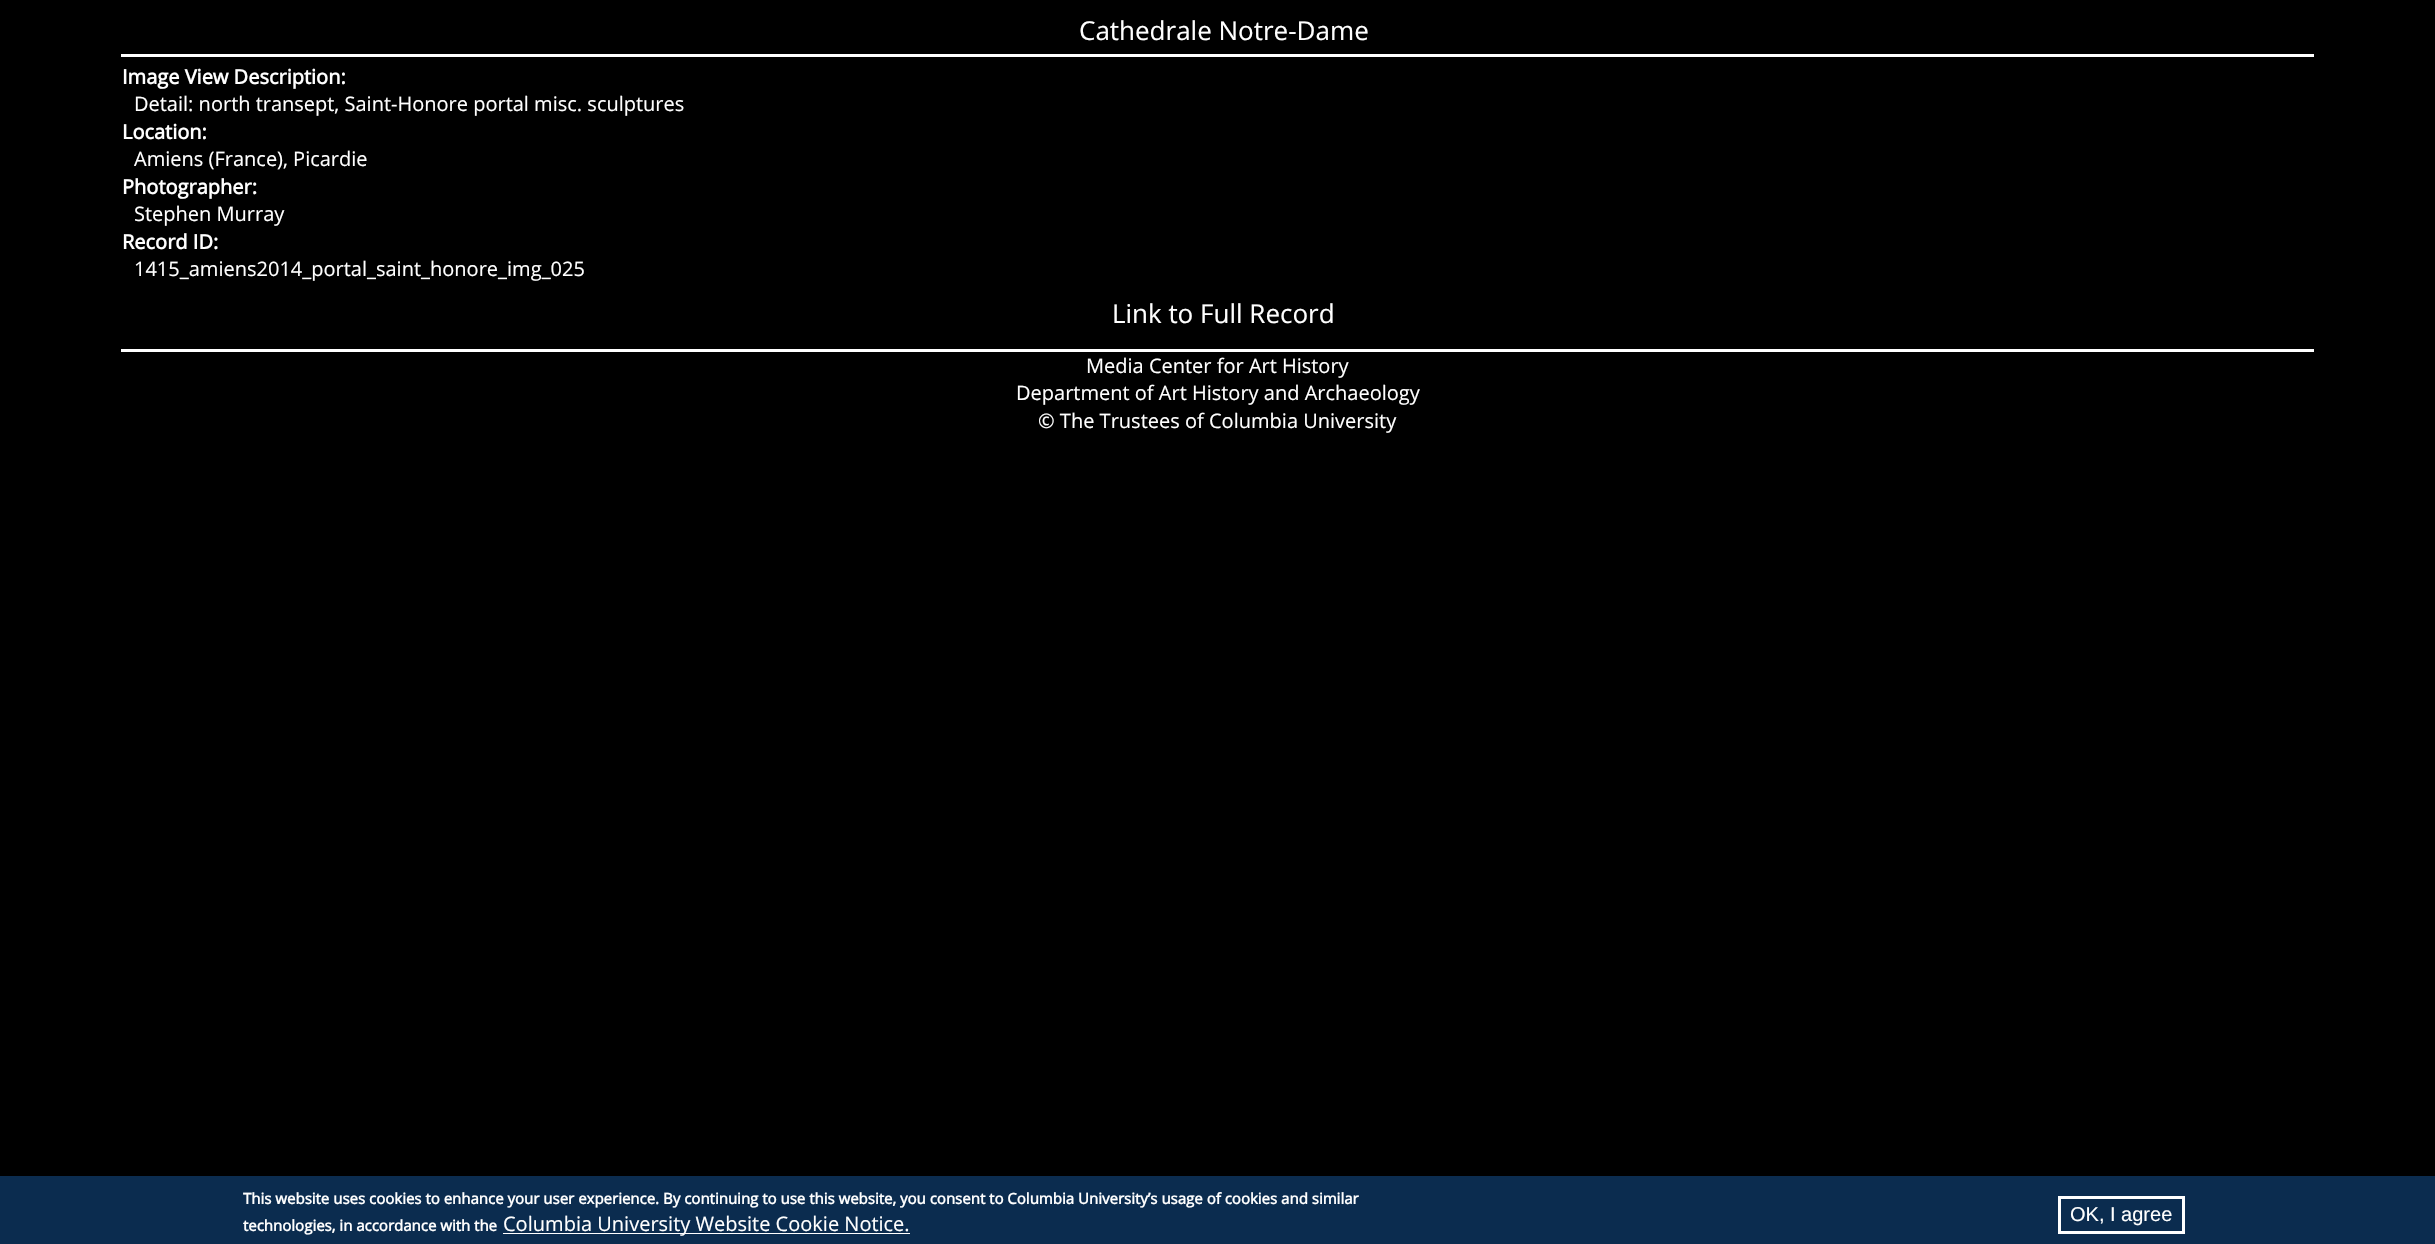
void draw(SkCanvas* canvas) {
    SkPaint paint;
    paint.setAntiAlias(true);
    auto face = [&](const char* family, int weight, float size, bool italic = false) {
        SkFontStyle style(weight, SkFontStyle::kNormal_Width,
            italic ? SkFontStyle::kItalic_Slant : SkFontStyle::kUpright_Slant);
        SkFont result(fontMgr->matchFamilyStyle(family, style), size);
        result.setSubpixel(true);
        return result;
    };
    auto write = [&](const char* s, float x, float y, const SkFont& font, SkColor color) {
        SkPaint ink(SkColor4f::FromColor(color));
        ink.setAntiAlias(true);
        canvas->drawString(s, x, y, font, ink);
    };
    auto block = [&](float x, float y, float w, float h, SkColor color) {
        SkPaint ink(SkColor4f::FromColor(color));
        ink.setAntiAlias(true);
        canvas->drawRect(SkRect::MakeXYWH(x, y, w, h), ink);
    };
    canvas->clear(SK_ColorBLACK);
    block(121, 54, 2193, 3, SK_ColorWHITE);
    auto kFont1 = face("Open Sans", 400, 26);
    write("Cathedrale Notre-Dame", 1079, 40, kFont1, SK_ColorWHITE);
    auto kFont2 = face("Open Sans", 700, 20);
    write("Image View Description:", 122, 84, kFont2, SK_ColorWHITE);
    auto kFont3 = face("Open Sans", 400, 20);
    write("Detail: north transept, Saint-Honore portal misc. sculptures", 134, 111, kFont3, SK_ColorWHITE);
    write("Location:", 122, 139, kFont2, SK_ColorWHITE);
    write("Amiens (France), Picardie", 134, 166, kFont3, SK_ColorWHITE);
    write("Photographer:", 122, 194, kFont2, SK_ColorWHITE);
    write("Stephen Murray", 134, 221, kFont3, SK_ColorWHITE);
    write("Record ID:", 122, 249, kFont2, SK_ColorWHITE);
    write("1415_amiens2014_portal_saint_honore_img_025", 134, 276, kFont3, SK_ColorWHITE);
    write("Link to Full Record", 1112, 323, kFont1, SK_ColorWHITE);
    block(121, 349, 2193, 3, SK_ColorWHITE);
    write("Media Center for Art History", 1086, 373, kFont3, SK_ColorWHITE);
    write("Department of Art History and Archaeology", 1016, 400, kFont3, SK_ColorWHITE);
    write("© The Trustees of Columbia University", 1038, 428, kFont3, SK_ColorWHITE);
    block(0, 1176, 2435, 68, SkColorSetRGB(11, 44, 79));
    auto kFont4 = face("Open Sans", 700, 15);
    write("This website uses cookies to enhance your user experience. By continuing to use this website, you consent to Columbia University’s usage of cookies and similar", 243, 1204, kFont4, SK_ColorWHITE);
    write("technologies, in accordance with the", 243, 1231, kFont4, SK_ColorWHITE);
    block(503, 1233, 407, 1, SK_ColorWHITE);
    write("Columbia University Website Cookie Notice.", 503, 1231, kFont3, SK_ColorWHITE);
    paint.setStyle(SkPaint::kStroke_Style);
    paint.setStrokeWidth(3);
    paint.setColor(SK_ColorWHITE);
    canvas->drawRect(SkRect::MakeXYWH(2059.5f, 1197.5f, 124, 35), paint);
    auto kFont5 = face("Liberation Sans", 400, 20);
    write("OK, I agree", 2070, 1221, kFont5, SK_ColorWHITE);
}
